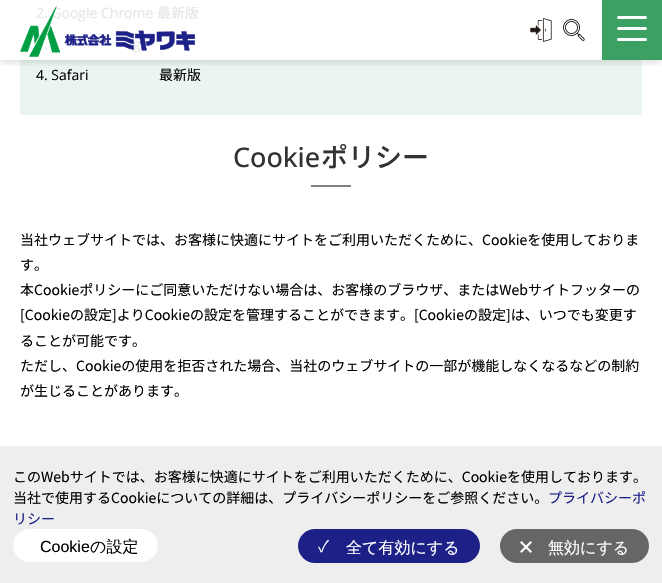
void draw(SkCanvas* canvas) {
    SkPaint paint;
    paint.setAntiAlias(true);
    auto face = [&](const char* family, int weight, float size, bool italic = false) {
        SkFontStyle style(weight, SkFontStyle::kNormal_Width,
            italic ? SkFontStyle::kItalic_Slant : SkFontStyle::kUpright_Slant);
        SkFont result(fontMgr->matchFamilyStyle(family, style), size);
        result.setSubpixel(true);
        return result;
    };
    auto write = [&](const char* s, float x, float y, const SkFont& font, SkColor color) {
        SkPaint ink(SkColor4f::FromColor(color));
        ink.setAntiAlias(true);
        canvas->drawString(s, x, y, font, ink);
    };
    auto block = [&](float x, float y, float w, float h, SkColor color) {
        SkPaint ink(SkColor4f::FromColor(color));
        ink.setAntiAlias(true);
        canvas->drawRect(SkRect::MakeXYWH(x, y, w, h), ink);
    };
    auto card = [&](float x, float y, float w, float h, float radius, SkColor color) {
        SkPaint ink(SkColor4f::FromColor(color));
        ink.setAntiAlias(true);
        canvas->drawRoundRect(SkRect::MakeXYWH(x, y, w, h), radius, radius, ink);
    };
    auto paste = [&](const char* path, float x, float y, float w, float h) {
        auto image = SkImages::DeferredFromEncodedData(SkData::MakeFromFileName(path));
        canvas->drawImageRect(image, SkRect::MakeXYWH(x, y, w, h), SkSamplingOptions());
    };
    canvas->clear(SK_ColorWHITE);
    block(20, 60, 622, 55, SkColorSetRGB(235, 245, 239));
    canvas->save();
    canvas->clipRect(SkRect::MakeXYWH(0, 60, 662, 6));
    paint.setColor(SkColorSetARGB(51, 0, 0, 0));
    paint.setMaskFilter(SkMaskFilter::MakeBlur(kNormal_SkBlurStyle, 5));
    canvas->drawRect(SkRect::MakeXYWH(0, 0, 662, 60), paint);
    paint.setMaskFilter(nullptr);
    canvas->restore();
    block(602, 0, 60, 60, SkColorSetRGB(60, 160, 98));
    card(617, 16, 30, 3, 1.5f, SK_ColorWHITE);
    card(617, 27, 30, 3, 1.5f, SK_ColorWHITE);
    card(617, 38, 30, 3, 1.5f, SK_ColorWHITE);
    auto kFont1 = face("Open Sans", 400, 14);
    write("2. Google Chrome", 36, 18, kFont1, SkColorSetRGB(230, 230, 230));
    auto kFont2 = face("Noto Sans JP", 400, 14);
    write("最新版", 157, 18, kFont2, SkColorSetRGB(230, 230, 230));
    write(".", 44, 49, kFont1, SkColorSetRGB(230, 230, 230));
    write("g", 133, 49, kFont1, SkColorSetRGB(230, 230, 230));
    paste("pic1.png", 20, 6, 175, 51);
    paste("pic2.png", 530, 18, 22, 24);
    paste("pic3.png", 563, 19, 22, 22);
    write("4. Safari", 36, 80, kFont1, SK_ColorBLACK);
    write("最新版", 159, 80, kFont2, SK_ColorBLACK);
    auto kFont3 = face("Open Sans", 500, 27);
    write("Cookie", 233, 167, kFont3, SkColorSetRGB(51, 51, 51));
    auto kFont4 = face("Noto Sans JP", 500, 27);
    write("ポリシー", 321, 167, kFont4, SkColorSetRGB(51, 51, 51));
    block(311, 185, 40, 2, SkColorSetRGB(128, 128, 128));
    write("当社ウェブサイトでは、お客様に快適にサイトをご利用いただくために、Cookieを使用しておりま", 20, 245, kFont2, SK_ColorBLACK);
    write("す。", 20, 270, kFont2, SK_ColorBLACK);
    write("本Cookieポリシーにご同意いただけない場合は、お客様のブラウザ、またはWebサイトフッターの", 20, 295, kFont2, SK_ColorBLACK);
    write("[Cookieの設定]よりCookieの設定を管理することができます。[Cookieの設定]は、いつでも変更す", 20, 320, kFont2, SK_ColorBLACK);
    write("ることが可能です。", 20, 346, kFont2, SK_ColorBLACK);
    write("ただし、Cookieの使用を拒否された場合、当社のウェブサイトの一部が機能しなくなるなどの制約", 20, 371, kFont2, SK_ColorBLACK);
    write("が生じることがあります。", 20, 396, kFont2, SK_ColorBLACK);
    block(0, 446, 662, 137, SkColorSetRGB(238, 238, 238));
    write("このWebサイトでは、お客様に快適にサイトをご利用いただくために、Cookieを使用しております。", 13, 482, kFont2, SK_ColorBLACK);
    write("当社で使用するCookieについての詳細は、プライバシーポリシーをご参照ください。", 13, 503, kFont2, SK_ColorBLACK);
    write("プライバシーポ", 548, 503, kFont2, SkColorSetRGB(29, 32, 136));
    write("リシー", 13, 524, kFont2, SkColorSetRGB(29, 32, 136));
    card(13, 529, 145, 33, 16.5f, SK_ColorWHITE);
    auto kFont5 = face("Liberation Sans", 400, 16);
    write("Cookie", 40, 552, kFont5, SK_ColorBLACK);
    auto kFont6 = face("WenQuanYi Zen Hei", 500, 16);
    write("の設定", 90, 552, kFont6, SK_ColorBLACK);
    card(298, 529, 182, 34, 17, SkColorSetRGB(29, 32, 135));
    paste("pic4.png", 318, 539, 11, 14);
    write("全て有効にする", 346, 553, kFont6, SK_ColorWHITE);
    card(500, 529, 149, 34, 17, SkColorSetRGB(102, 102, 102));
    paste("pic5.png", 520, 541, 12, 12);
    write("無効にする", 548, 553, kFont6, SK_ColorWHITE);
}
